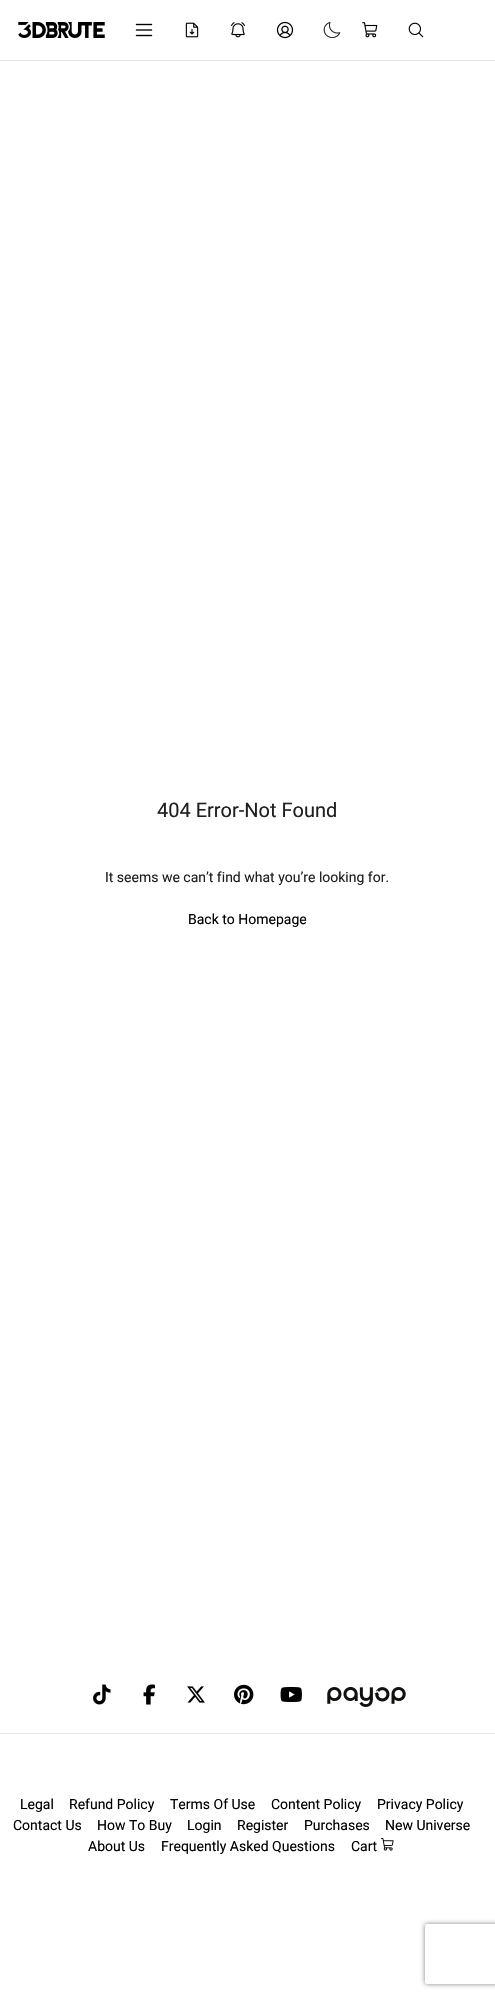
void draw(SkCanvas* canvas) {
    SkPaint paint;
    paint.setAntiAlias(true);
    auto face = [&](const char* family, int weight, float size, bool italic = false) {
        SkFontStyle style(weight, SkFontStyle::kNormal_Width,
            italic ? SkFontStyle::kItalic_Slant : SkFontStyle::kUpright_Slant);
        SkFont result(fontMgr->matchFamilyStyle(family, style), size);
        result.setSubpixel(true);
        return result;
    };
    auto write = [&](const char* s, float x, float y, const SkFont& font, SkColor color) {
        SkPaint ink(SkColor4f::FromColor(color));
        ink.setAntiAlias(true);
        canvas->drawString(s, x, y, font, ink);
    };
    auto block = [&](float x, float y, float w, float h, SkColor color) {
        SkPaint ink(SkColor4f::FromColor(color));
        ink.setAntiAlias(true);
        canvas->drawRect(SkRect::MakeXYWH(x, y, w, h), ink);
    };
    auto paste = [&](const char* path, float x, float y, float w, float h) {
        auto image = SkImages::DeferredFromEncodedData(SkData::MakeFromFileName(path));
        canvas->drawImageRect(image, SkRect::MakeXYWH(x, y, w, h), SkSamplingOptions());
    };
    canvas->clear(SK_ColorWHITE);
    block(0, 60, 495, 1, SkColorSetRGB(230, 230, 230));
    paste("pic1.png", 18, 22, 87, 16);
    paste("pic2.png", 135, 23, 18, 14);
    paste("pic3.png", 185, 22, 14, 16);
    paste("pic4.png", 231, 22, 14, 16);
    paste("pic5.png", 276, 21, 18, 18);
    paste("pic6.png", 323, 22, 18, 16);
    paste("pic7.png", 362, 22, 16, 16);
    paste("pic8.png", 408, 22, 16, 16);
    auto kFont1 = face("Roboto", 400, 20);
    write("404 Error-Not Found", 157, 817, kFont1, SkColorSetRGB(31, 31, 31));
    auto kFont2 = face("Roboto", 400, 14);
    write("It seems we can’t find what you’re looking for.", 105, 882, kFont2, SkColorSetRGB(31, 31, 31));
    write("Back to Homepage", 188, 924, kFont2, SK_ColorBLACK);
    paste("pic9.png", 93, 1684, 18, 21);
    paste("pic10.png", 143, 1684, 12, 21);
    paste("pic11.png", 187, 1686, 18, 17);
    paste("pic12.png", 234, 1684, 20, 21);
    paste("pic13.png", 280, 1687, 22, 15);
    paste("pic14.png", 327, 1687, 79, 20);
    block(0, 1733, 495, 1, SkColorSetRGB(230, 230, 230));
    write("Legal", 20, 1809, kFont2, SK_ColorBLACK);
    write("Refund Policy", 69, 1809, kFont2, SK_ColorBLACK);
    write("Terms Of Use", 170, 1809, kFont2, SK_ColorBLACK);
    write("Content Policy", 271, 1809, kFont2, SK_ColorBLACK);
    write("Privacy Policy", 377, 1809, kFont2, SK_ColorBLACK);
    write("Contact Us", 13, 1830, kFont2, SK_ColorBLACK);
    write("How To Buy", 97, 1830, kFont2, SK_ColorBLACK);
    write("Login", 187, 1830, kFont2, SK_ColorBLACK);
    write("Register", 237, 1830, kFont2, SK_ColorBLACK);
    write("Purchases", 304, 1830, kFont2, SK_ColorBLACK);
    write("New Universe", 385, 1830, kFont2, SK_ColorBLACK);
    write("About Us", 88, 1851, kFont2, SK_ColorBLACK);
    write("Frequently Asked Questions", 161, 1851, kFont2, SK_ColorBLACK);
    write("Cart", 351, 1851, kFont2, SK_ColorBLACK);
    paste("pic15.png", 381, 1837, 13, 14);
    canvas->save();
    canvas->clipPath(SkPathBuilder(SkPathFillType::kEvenOdd).moveTo(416, 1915).lineTo(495, 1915).lineTo(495, 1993).lineTo(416, 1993).close().moveTo(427, 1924).lineTo(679, 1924).cubicTo(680, 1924, 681, 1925, 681, 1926).lineTo(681, 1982).cubicTo(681, 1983, 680, 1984, 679, 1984).lineTo(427, 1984).cubicTo(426, 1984, 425, 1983, 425, 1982).lineTo(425, 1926).cubicTo(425, 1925, 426, 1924, 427, 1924).close().detach(), true);
    paint.setColor(SkColorSetRGB(128, 128, 128));
    paint.setMaskFilter(SkMaskFilter::MakeBlur(kNormal_SkBlurStyle, 2.5f));
    canvas->drawRoundRect(SkRect::MakeXYWH(425, 1924, 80, 60), 2, 2, paint);
    paint.setMaskFilter(nullptr);
    canvas->restore();
}
